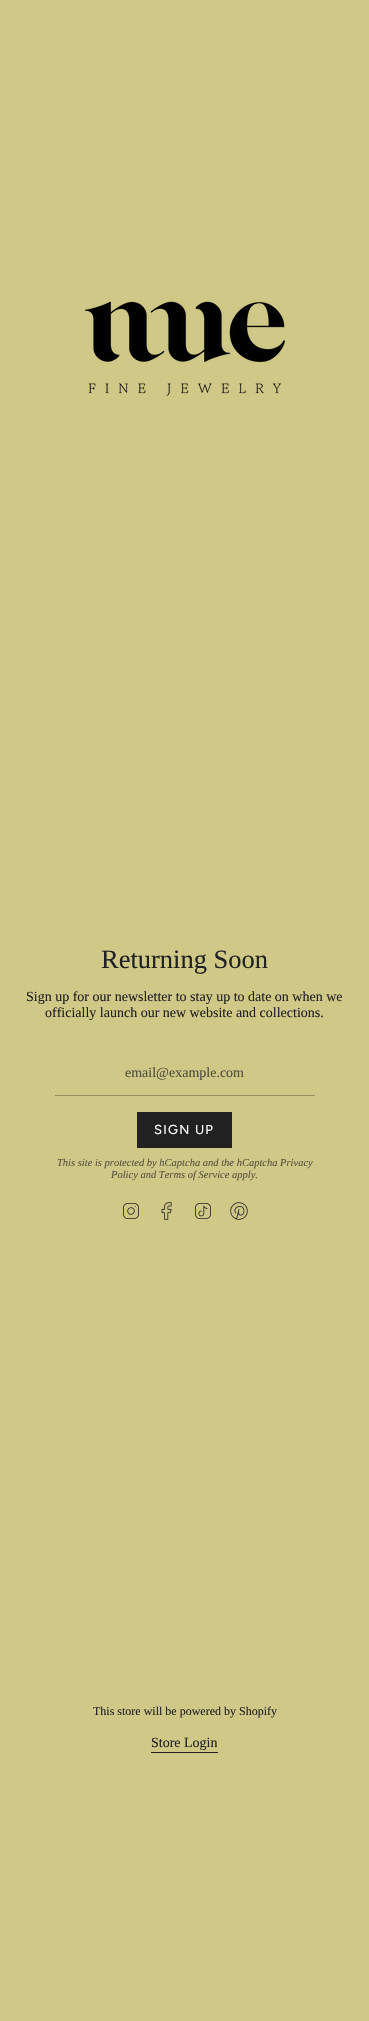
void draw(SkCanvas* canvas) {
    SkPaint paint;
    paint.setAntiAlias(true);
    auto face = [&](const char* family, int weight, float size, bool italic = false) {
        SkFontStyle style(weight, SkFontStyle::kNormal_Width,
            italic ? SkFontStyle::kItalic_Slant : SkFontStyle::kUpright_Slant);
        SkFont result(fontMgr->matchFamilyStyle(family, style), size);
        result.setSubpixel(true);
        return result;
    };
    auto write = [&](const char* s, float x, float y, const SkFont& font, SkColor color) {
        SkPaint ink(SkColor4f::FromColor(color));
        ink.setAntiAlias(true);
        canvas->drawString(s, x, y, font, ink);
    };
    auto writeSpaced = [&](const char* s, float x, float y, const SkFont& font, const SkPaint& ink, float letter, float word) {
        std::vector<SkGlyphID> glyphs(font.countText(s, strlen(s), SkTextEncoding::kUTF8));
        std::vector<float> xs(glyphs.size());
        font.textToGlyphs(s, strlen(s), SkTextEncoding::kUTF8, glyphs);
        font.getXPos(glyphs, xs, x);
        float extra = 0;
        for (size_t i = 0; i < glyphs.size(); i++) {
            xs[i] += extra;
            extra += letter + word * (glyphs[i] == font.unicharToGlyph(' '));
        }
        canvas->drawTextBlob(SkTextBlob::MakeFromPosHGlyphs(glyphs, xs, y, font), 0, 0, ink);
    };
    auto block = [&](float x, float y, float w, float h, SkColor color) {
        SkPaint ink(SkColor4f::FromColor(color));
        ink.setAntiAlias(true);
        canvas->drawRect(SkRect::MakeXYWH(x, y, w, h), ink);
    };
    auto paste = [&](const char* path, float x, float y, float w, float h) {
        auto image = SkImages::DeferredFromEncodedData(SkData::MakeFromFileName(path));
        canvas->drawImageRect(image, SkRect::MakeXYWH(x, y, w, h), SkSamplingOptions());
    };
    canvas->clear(SkColorSetRGB(208, 200, 135));
    paste("pic1.png", 85, 301, 200, 96);
    auto kFont1 = face("Liberation Serif", 400, 26.5f);
    write("Returning Soon", 101, 968, kFont1, SkColorSetRGB(33, 33, 33));
    auto kFont2 = face("Liberation Serif", 400, 14);
    write("Sign up for our newsletter to stay up to date on when we", 26, 1001, kFont2, SkColorSetRGB(33, 33, 33));
    write("officially launch our new website and collections.", 45, 1017, kFont2, SkColorSetRGB(33, 33, 33));
    block(55, 1095, 260, 1, SkColorSetRGB(147, 142, 99));
    write("email@example.com", 125, 1077, kFont2, SkColorSetRGB(77, 75, 59));
    block(137, 1112, 95, 36, SkColorSetRGB(33, 33, 33));
    auto kFont3 = face("Figtree", 400, 13);
    paint.setColor(SK_ColorWHITE);
    writeSpaced("SIGN UP", 154, 1134, kFont3, paint, 1.25f, 0);
    auto kFont4 = face("Liberation Serif", 400, 10.5f, true);
    write("This site is protected by hCaptcha and the hCaptcha Privacy", 57, 1166, kFont4, SkColorSetRGB(86, 83, 64));
    write("Policy and Terms of Service apply.", 111, 1178, kFont4, SkColorSetRGB(86, 83, 64));
    paste("pic2.png", 123, 1203, 16, 16);
    paste("pic3.png", 161, 1202, 11, 18);
    paste("pic4.png", 195, 1203, 16, 16);
    paste("pic5.png", 230, 1202, 18, 18);
    auto kFont5 = face("Liberation Serif", 400, 12);
    write("This store will be powered by Shopify", 93, 1715, kFont5, SkColorSetRGB(33, 33, 33));
    block(151, 1752, 67, 1, SkColorSetRGB(33, 33, 33));
    write("Store Login", 151, 1747, kFont2, SkColorSetRGB(33, 33, 33));
}
